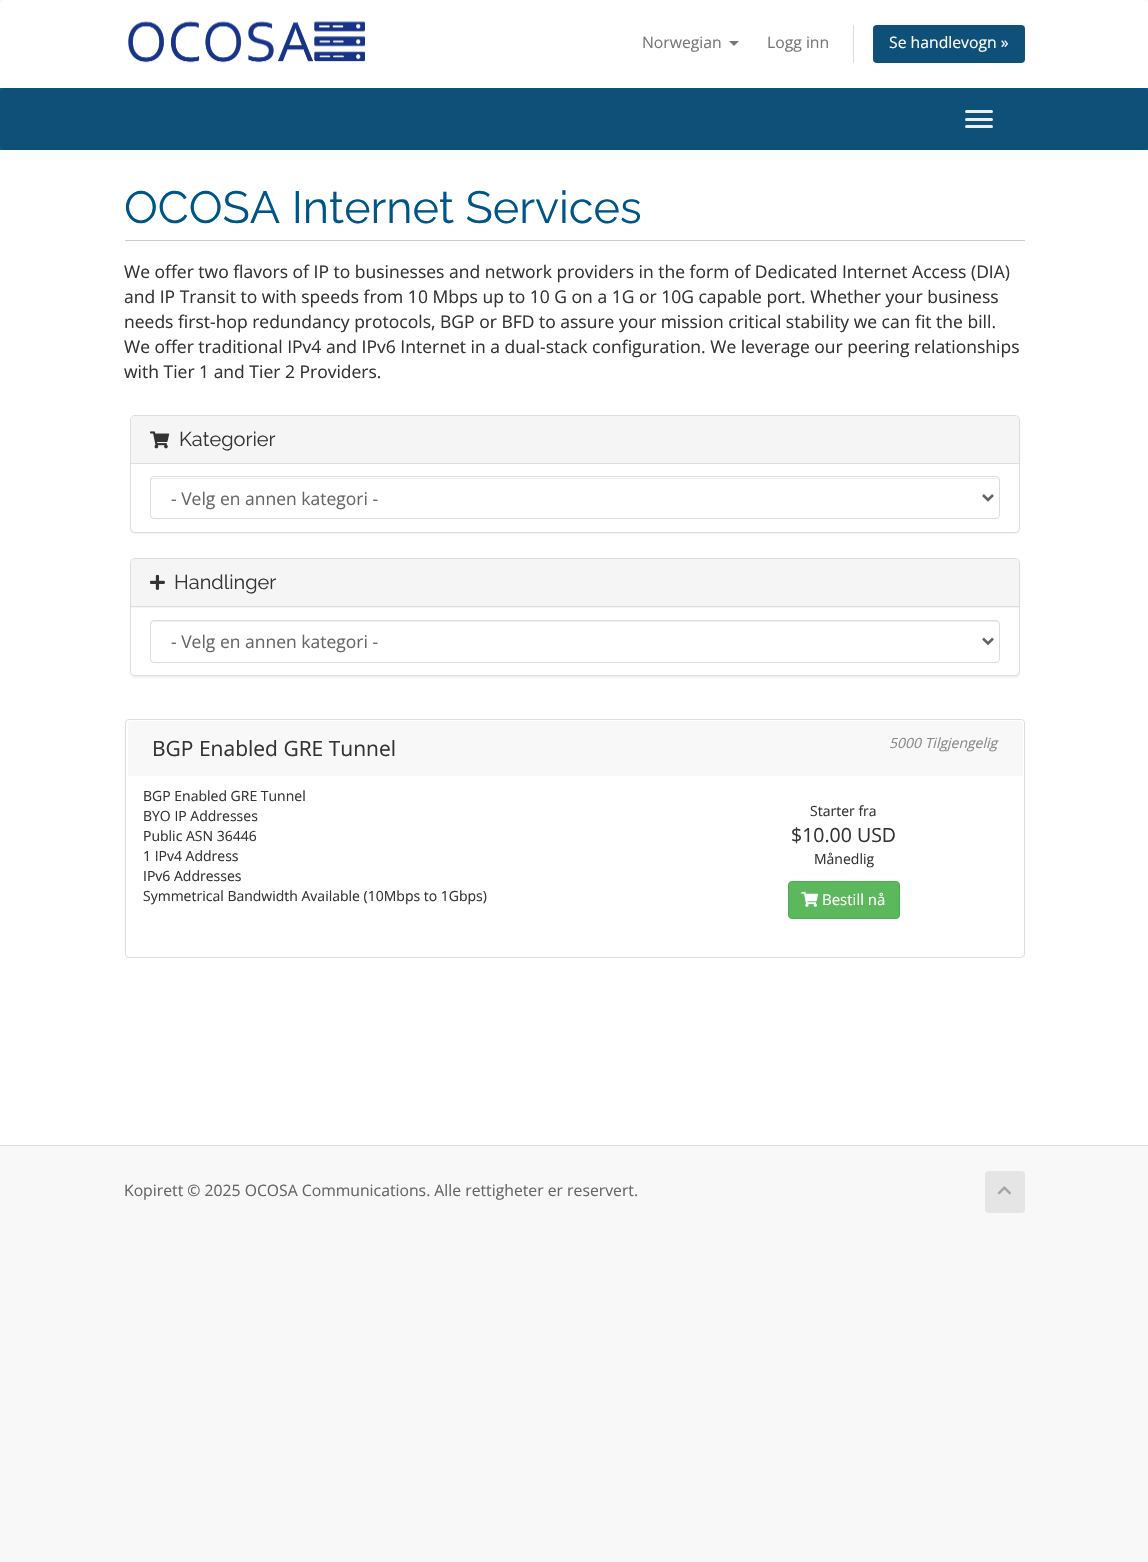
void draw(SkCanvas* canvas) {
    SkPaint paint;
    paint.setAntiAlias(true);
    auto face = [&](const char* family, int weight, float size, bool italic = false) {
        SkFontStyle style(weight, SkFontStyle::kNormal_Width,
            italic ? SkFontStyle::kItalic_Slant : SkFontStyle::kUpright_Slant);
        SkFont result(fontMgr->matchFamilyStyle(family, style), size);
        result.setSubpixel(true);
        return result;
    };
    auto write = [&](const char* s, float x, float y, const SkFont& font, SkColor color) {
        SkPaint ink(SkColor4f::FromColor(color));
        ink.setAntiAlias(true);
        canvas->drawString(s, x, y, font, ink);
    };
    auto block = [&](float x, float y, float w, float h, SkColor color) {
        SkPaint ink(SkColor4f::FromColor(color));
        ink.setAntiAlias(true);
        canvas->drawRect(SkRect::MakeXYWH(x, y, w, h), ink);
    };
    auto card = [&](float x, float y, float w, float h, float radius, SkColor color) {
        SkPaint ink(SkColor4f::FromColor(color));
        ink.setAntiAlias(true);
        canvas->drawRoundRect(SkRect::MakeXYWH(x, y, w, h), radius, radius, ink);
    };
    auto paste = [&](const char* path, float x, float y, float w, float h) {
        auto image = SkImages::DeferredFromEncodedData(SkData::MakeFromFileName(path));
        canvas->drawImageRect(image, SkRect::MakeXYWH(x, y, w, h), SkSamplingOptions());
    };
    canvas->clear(SkColorSetRGB(248, 248, 248));
    paint.setColor(SK_ColorWHITE);
    canvas->drawPath(SkPathBuilder().moveTo(6, 0).lineTo(1143, 0).cubicTo(1146.5f, 0, 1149, 2.5f, 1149, 6).lineTo(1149, 88).lineTo(0, 88).lineTo(0, 6).cubicTo(0, 2.5f, 2.5f, 0, 6, 0).close().detach(), paint);
    paste("pic1.png", 128, 21, 237, 42);
    auto kFont1 = face("Open Sans", 400, 15.75f);
    write("Norwegian", 642, 48, kFont1, SkColorSetRGB(119, 119, 119));
    paint.setColor(SkColorSetRGB(119, 119, 119));
    canvas->drawPath(SkPathBuilder().moveTo(729, 41).lineTo(739, 41).lineTo(734, 46).close().detach(), paint);
    write("Logg inn", 767, 48, kFont1, SkColorSetRGB(119, 119, 119));
    block(853, 25, 1, 38, SkColorSetRGB(221, 221, 221));
    card(873, 25, 152, 38, 4, SkColorSetRGB(14, 80, 119));
    write("Se handlevogn »", 889, 48, kFont1, SK_ColorWHITE);
    block(0, 88, 1148, 62, SkColorSetRGB(0, 102, 135));
    card(0, 88, 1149, 62, 5, SkColorSetRGB(14, 80, 119));
    card(965, 110, 28, 3, 1.5f, SkColorSetRGB(238, 238, 238));
    card(965, 118, 28, 3, 1.5f, SkColorSetRGB(238, 238, 238));
    card(965, 125, 28, 3, 1.5f, SkColorSetRGB(238, 238, 238));
    block(0, 150, 1148, 995, SK_ColorWHITE);
    block(125, 240, 900, 1, SkColorSetRGB(204, 204, 204));
    auto kFont2 = face("Raleway", 400, 45);
    write("OCOSA Internet Services", 124, 223, kFont2, SkColorSetRGB(0, 85, 136));
    auto kFont3 = face("Open Sans", 400, 17.5f);
    write("We offer two flavors of IP to businesses and network providers in the form of Dedicated Internet Access (DIA)", 124, 278, kFont3, SkColorSetRGB(51, 51, 51));
    write("and IP Transit to with speeds from 10 Mbps up to 10 G on a 1G or 10G capable port. Whether your business", 124, 303, kFont3, SkColorSetRGB(51, 51, 51));
    write("needs first-hop redundancy protocols, BGP or BFD to assure your mission critical stability we can fit the bill.", 124, 328, kFont3, SkColorSetRGB(51, 51, 51));
    write("We offer traditional IPv4 and IPv6 Internet in a dual-stack configuration. We leverage our peering relationships", 124, 353, kFont3, SkColorSetRGB(51, 51, 51));
    write("with Tier 1 and Tier 2 Providers.", 124, 378, kFont3, SkColorSetRGB(51, 51, 51));
    paint.setColor(SkColorSetARGB(13, 0, 0, 0));
    paint.setMaskFilter(SkMaskFilter::MakeBlur(kNormal_SkBlurStyle, 0.5f));
    canvas->drawRoundRect(SkRect::MakeXYWH(130, 416, 890, 118), 5, 5, paint);
    paint.setMaskFilter(nullptr);
    paint.setColor(SK_ColorWHITE);
    canvas->drawRoundRect(SkRect::MakeXYWH(130.5f, 415.5f, 889, 117), 4.5f, 4.5f, paint);
    paint.setStyle(SkPaint::kStroke_Style);
    paint.setStrokeWidth(1);
    paint.setColor(SkColorSetRGB(221, 221, 221));
    canvas->drawRoundRect(SkRect::MakeXYWH(130.5f, 415.5f, 889, 117), 4.5f, 4.5f, paint);
    paint.setStyle(SkPaint::kFill_Style);
    paint.setColor(SkColorSetRGB(245, 245, 245));
    canvas->drawPath(SkPathBuilder().moveTo(135, 416).lineTo(1015, 416).cubicTo(1017, 416, 1019, 418, 1019, 420).lineTo(1019, 464).lineTo(131, 464).lineTo(131, 420).cubicTo(131, 418, 133, 416, 135, 416).close().detach(), paint);
    block(131, 463, 888, 1, SkColorSetRGB(221, 221, 221));
    paste("pic2.png", 150, 431, 20, 18);
    auto kFont4 = face("Raleway", 400, 20);
    write("Kategorier", 179, 446, kFont4, SkColorSetRGB(51, 51, 51));
    paint.setColor(SkColorSetRGB(236, 236, 236));
    canvas->drawPath(SkPathBuilder().moveTo(154, 479).lineTo(996, 479).cubicTo(998, 479, 999, 480, 999, 481).lineTo(999, 480).cubicTo(999, 479, 998, 478, 996, 478).lineTo(154, 478).cubicTo(152, 478, 151, 479, 151, 480).lineTo(151, 481).cubicTo(151, 480, 152, 479, 154, 479).close().detach(), paint);
    paint.setStyle(SkPaint::kStroke_Style);
    paint.setColor(SkColorSetRGB(221, 221, 221));
    canvas->drawRoundRect(SkRect::MakeXYWH(150.5f, 476.5f, 849, 42), 3.5f, 3.5f, paint);
    paint.setStrokeWidth(2.5f);
    paint.setColor(SkColorSetRGB(98, 98, 98));
    canvas->drawPath(SkPathBuilder().moveTo(983, 495).lineTo(988, 500).lineTo(993, 495).detach(), paint);
    write("- Velg en annen kategori -", 171, 505, kFont3, SkColorSetRGB(102, 102, 102));
    paint.setStyle(SkPaint::kFill_Style);
    paint.setColor(SkColorSetARGB(13, 0, 0, 0));
    paint.setMaskFilter(SkMaskFilter::MakeBlur(kNormal_SkBlurStyle, 0.5f));
    canvas->drawRoundRect(SkRect::MakeXYWH(130, 559, 890, 119), 5, 5, paint);
    paint.setMaskFilter(nullptr);
    paint.setColor(SK_ColorWHITE);
    canvas->drawRoundRect(SkRect::MakeXYWH(130.5f, 558.5f, 889, 117), 4.5f, 4.5f, paint);
    paint.setStyle(SkPaint::kStroke_Style);
    paint.setStrokeWidth(1);
    paint.setColor(SkColorSetRGB(221, 221, 221));
    canvas->drawRoundRect(SkRect::MakeXYWH(130.5f, 558.5f, 889, 117), 4.5f, 4.5f, paint);
    paint.setStyle(SkPaint::kFill_Style);
    paint.setColor(SkColorSetRGB(245, 245, 245));
    canvas->drawPath(SkPathBuilder().moveTo(135, 559).lineTo(1015, 559).cubicTo(1017, 559, 1019, 561, 1019, 563).lineTo(1019, 608).lineTo(131, 608).lineTo(131, 563).cubicTo(131, 561, 133, 559, 135, 559).close().detach(), paint);
    block(131, 606, 888, 1, SkColorSetRGB(221, 221, 221));
    paste("pic3.png", 150, 574, 15, 16);
    write("Handlinger", 174, 589, kFont4, SkColorSetRGB(51, 51, 51));
    paint.setColor(SkColorSetRGB(236, 236, 236));
    canvas->drawPath(SkPathBuilder().moveTo(154, 622).lineTo(996, 622).cubicTo(998, 622, 999, 624, 999, 625).lineTo(999, 624).cubicTo(999, 622, 998, 621, 996, 621).lineTo(154, 621).cubicTo(152, 621, 151, 622, 151, 624).lineTo(151, 625).cubicTo(151, 624, 152, 622, 154, 622).close().detach(), paint);
    paint.setStyle(SkPaint::kStroke_Style);
    paint.setColor(SkColorSetRGB(221, 221, 221));
    canvas->drawRoundRect(SkRect::MakeXYWH(150.5f, 620.5f, 849, 42), 3.5f, 3.5f, paint);
    paint.setStrokeWidth(2.5f);
    paint.setColor(SkColorSetRGB(98, 98, 98));
    canvas->drawPath(SkPathBuilder().moveTo(983, 638.5f).lineTo(988, 643.5f).lineTo(993, 638.5f).detach(), paint);
    write("- Velg en annen kategori -", 171, 648, kFont3, SkColorSetRGB(102, 102, 102));
    paint.setStrokeWidth(1);
    paint.setColor(SkColorSetRGB(221, 221, 221));
    canvas->drawRoundRect(SkRect::MakeXYWH(125.5f, 719.5f, 899, 238), 3.5f, 3.5f, paint);
    paint.setStyle(SkPaint::kFill_Style);
    paint.setColor(SkColorSetRGB(248, 248, 248));
    canvas->drawPath(SkPathBuilder().moveTo(132, 721).lineTo(1019, 721).cubicTo(1021, 721, 1023, 723, 1023, 725).lineTo(1023, 776).lineTo(128, 776).lineTo(128, 725).cubicTo(128, 723, 130, 721, 132, 721).close().detach(), paint);
    auto kFont5 = face("Open Sans", 400, 21);
    write("BGP Enabled GRE Tunnel", 152, 756, kFont5, SkColorSetRGB(51, 51, 51));
    auto kFont6 = face("Open Sans", 400, 14, true);
    write("5000 Tilgjengelig", 889, 748, kFont6, SkColorSetRGB(136, 136, 136));
    auto kFont7 = face("Open Sans", 400, 14);
    write("BGP Enabled GRE Tunnel", 143, 801, kFont7, SkColorSetRGB(51, 51, 51));
    write("BYO IP Addresses", 143, 821, kFont7, SkColorSetRGB(51, 51, 51));
    write("Public ASN 36446", 143, 841, kFont7, SkColorSetRGB(51, 51, 51));
    write("1 IPv4 Address", 143, 861, kFont7, SkColorSetRGB(51, 51, 51));
    write("IPv6 Addresses", 143, 881, kFont7, SkColorSetRGB(51, 51, 51));
    write("Symmetrical Bandwidth Available (10Mbps to 1Gbps)", 143, 901, kFont7, SkColorSetRGB(51, 51, 51));
    write("Starter fra", 810, 816, kFont7, SkColorSetRGB(51, 51, 51));
    auto kFont8 = face("Open Sans", 400, 19.5f);
    write("$10.00 USD", 791, 842, kFont8, SkColorSetRGB(51, 51, 51));
    write("Månedlig", 814, 864, kFont7, SkColorSetRGB(51, 51, 51));
    paint.setColor(SkColorSetRGB(92, 184, 92));
    canvas->drawRoundRect(SkRect::MakeXYWH(788.5f, 881.5f, 111, 37), 3.5f, 3.5f, paint);
    paint.setStyle(SkPaint::kStroke_Style);
    paint.setColor(SkColorSetRGB(76, 174, 76));
    canvas->drawRoundRect(SkRect::MakeXYWH(788.5f, 881.5f, 111, 37), 3.5f, 3.5f, paint);
    paste("pic4.png", 801, 891, 18, 16);
    auto kFont9 = face("Open Sans", 400, 15);
    write("Bestill nå", 822, 905, kFont9, SK_ColorWHITE);
    block(0, 1145, 1148, 1, SkColorSetRGB(221, 221, 221));
    write("Kopirett © 2025 OCOSA Communications. Alle rettigheter er reservert.", 124, 1196, kFont1, SkColorSetRGB(102, 102, 102));
    card(985, 1171, 40, 42, 4, SkColorSetRGB(229, 229, 229));
    paste("pic5.png", 997, 1186, 14, 9);
}
